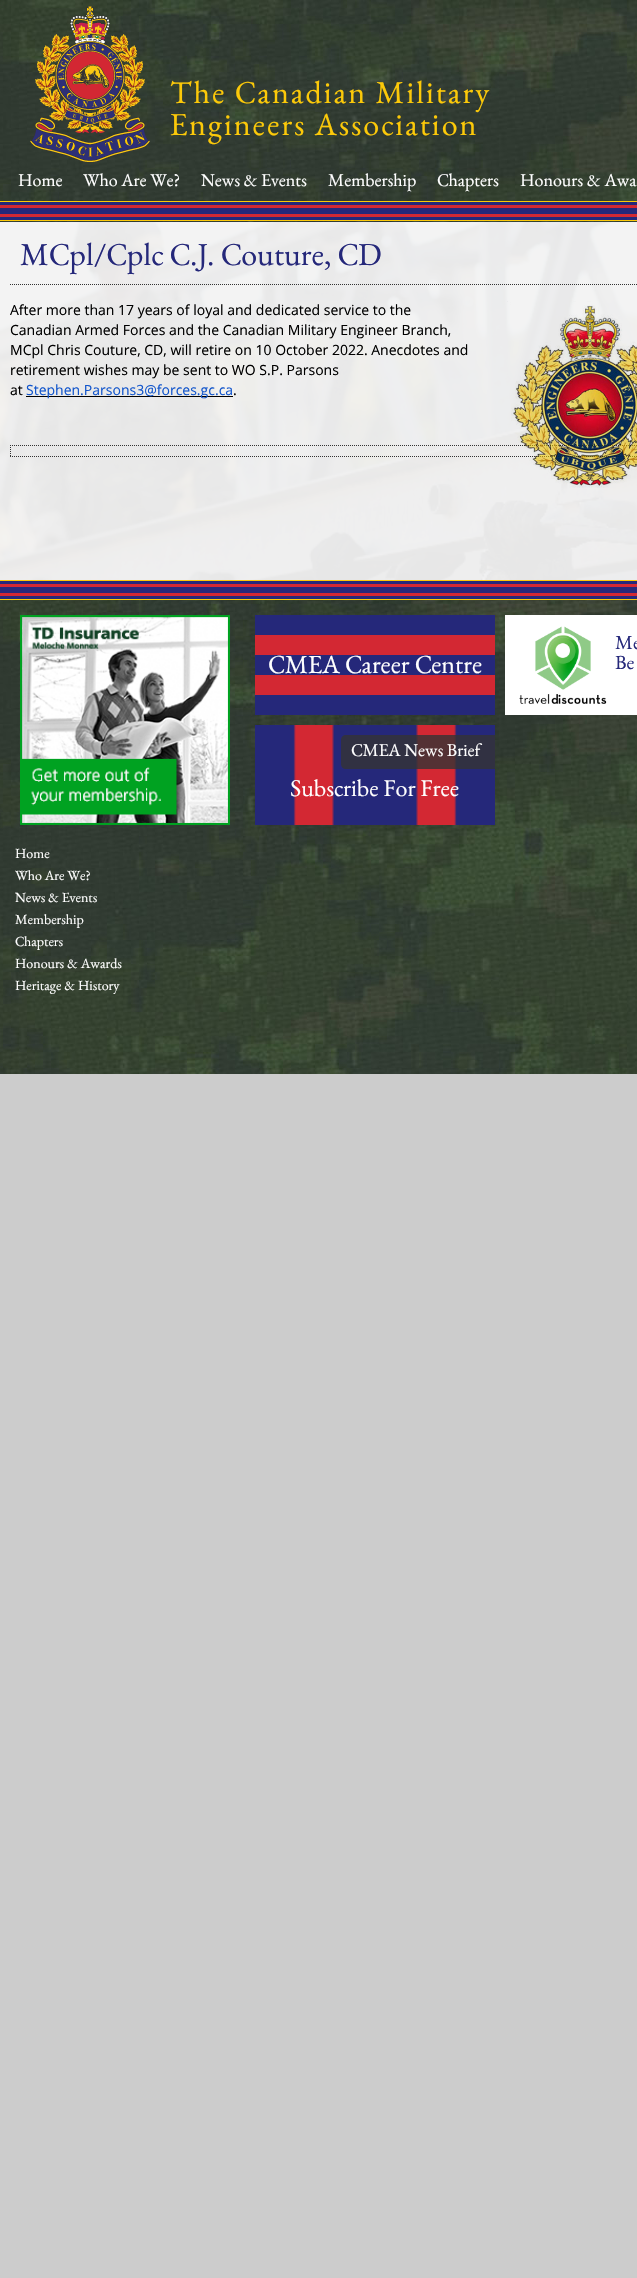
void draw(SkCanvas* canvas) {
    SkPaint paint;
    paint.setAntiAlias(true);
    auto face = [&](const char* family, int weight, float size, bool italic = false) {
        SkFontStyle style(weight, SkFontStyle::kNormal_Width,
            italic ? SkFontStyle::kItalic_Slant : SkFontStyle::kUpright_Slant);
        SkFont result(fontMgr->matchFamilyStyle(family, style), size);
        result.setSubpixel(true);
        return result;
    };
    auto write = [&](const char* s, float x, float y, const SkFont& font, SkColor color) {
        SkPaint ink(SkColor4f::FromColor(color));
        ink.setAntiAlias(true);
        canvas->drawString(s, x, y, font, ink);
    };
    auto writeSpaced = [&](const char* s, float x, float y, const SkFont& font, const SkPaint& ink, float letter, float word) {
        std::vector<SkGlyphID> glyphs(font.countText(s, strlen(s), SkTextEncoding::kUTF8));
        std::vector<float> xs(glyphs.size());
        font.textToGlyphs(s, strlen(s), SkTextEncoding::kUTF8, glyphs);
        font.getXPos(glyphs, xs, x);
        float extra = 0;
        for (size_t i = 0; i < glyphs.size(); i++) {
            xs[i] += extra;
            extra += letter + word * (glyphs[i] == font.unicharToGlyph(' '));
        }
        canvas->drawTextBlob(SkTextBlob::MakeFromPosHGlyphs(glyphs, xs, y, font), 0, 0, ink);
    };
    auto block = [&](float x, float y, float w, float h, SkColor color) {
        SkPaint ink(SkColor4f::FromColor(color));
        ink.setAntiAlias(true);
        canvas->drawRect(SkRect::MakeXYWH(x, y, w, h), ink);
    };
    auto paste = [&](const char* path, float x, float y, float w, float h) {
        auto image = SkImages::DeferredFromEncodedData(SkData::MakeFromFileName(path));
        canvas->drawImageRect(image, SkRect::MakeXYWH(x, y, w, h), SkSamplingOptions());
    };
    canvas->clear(SkColorSetRGB(204, 204, 204));
    paste("pic1.png", 0, 222, 637, 358);
    paste("pic2.png", 0, 0, 637, 222);
    paste("pic3.png", 30, 6, 120, 157);
    auto kFont1 = face("EB Garamond", 400, 32);
    paint.setColor(SkColorSetRGB(252, 201, 9));
    writeSpaced("The Canadian Military", 170, 103, kFont1, paint, 2, 0);
    writeSpaced("Engineers Association", 170, 135, kFont1, paint, 2, 0);
    auto kFont2 = face("EB Garamond", 400, 18);
    write("Home", 18, 186, kFont2, SK_ColorWHITE);
    write("Who Are We?", 83, 186, kFont2, SK_ColorWHITE);
    write("News & Events", 201, 186, kFont2, SK_ColorWHITE);
    write("Membership", 328, 186, kFont2, SK_ColorWHITE);
    write("Chapters", 437, 186, kFont2, SK_ColorWHITE);
    write("Honours & Awa", 520, 186, kFont2, SK_ColorWHITE);
    block(0, 201, 637, 1, SkColorSetRGB(252, 201, 9));
    block(0, 202, 637, 3, SkColorSetRGB(37, 40, 122));
    block(0, 205, 637, 3, SkColorSetRGB(211, 40, 51));
    block(0, 208, 637, 6, SkColorSetRGB(37, 40, 122));
    block(0, 214, 637, 3, SkColorSetRGB(211, 40, 51));
    block(0, 217, 637, 3, SkColorSetRGB(37, 40, 122));
    block(0, 220, 637, 1, SkColorSetRGB(252, 201, 9));
    block(0, 222, 637, 358, SkColorSetARGB(242, 242, 242, 242));
    paint.setStyle(SkPaint::kStroke_Style);
    paint.setStrokeWidth(1);
    paint.setColor(SkColorSetRGB(51, 51, 51));
    paint.setPathEffect(SkDashPathEffect::Make({{1, 1}}, 0));
    canvas->drawPath(SkPathBuilder().moveTo(10, 284.5f).lineTo(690, 284.5f).detach(), paint);
    paint.setPathEffect(nullptr);
    write("MCpl/Cplc C.J. Couture, CD", 20, 265, kFont1, SkColorSetRGB(37, 40, 122));
    auto kFont3 = face("Open Sans", 400, 14);
    write("After more than 17 years of loyal and dedicated service to the", 10, 315, kFont3, SK_ColorBLACK);
    write("Canadian Armed Forces and the Canadian Military Engineer Branch,", 10, 335, kFont3, SK_ColorBLACK);
    write("MCpl Chris Couture, CD, will retire on 10 October 2022. Anecdotes and", 10, 355, kFont3, SK_ColorBLACK);
    write("retirement wishes may be sent to WO S.P. Parsons", 10, 375, kFont3, SK_ColorBLACK);
    write("at", 10, 395, kFont3, SK_ColorBLACK);
    block(26, 396, 207, 1, SK_ColorBLACK);
    write("Stephen.Parsons3@forces.gc.ca", 26, 395, kFont3, SkColorSetRGB(17, 85, 204));
    write(".", 233, 395, kFont3, SK_ColorBLACK);
    paint.setPathEffect(SkDashPathEffect::Make({{1, 1}}, 0));
    canvas->drawPath(SkPathBuilder().moveTo(10, 445.5f).lineTo(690, 445.5f).detach(), paint);
    paint.setPathEffect(nullptr);
    paint.setPathEffect(SkDashPathEffect::Make({{1, 1}}, 0));
    canvas->drawPath(SkPathBuilder().moveTo(10, 456.5f).lineTo(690, 456.5f).detach(), paint);
    paint.setPathEffect(nullptr);
    paste("pic4.png", 507, 301, 130, 187);
    paint.setPathEffect(SkDashPathEffect::Make({{1, 1}}, 0));
    canvas->drawPath(SkPathBuilder().moveTo(10.5f, 445).lineTo(10.5f, 457).detach(), paint);
    paint.setPathEffect(nullptr);
    paste("pic5.png", 0, 600, 637, 474);
    block(0, 580, 637, 1, SkColorSetRGB(252, 201, 9));
    block(0, 581, 637, 3, SkColorSetRGB(37, 40, 122));
    block(0, 584, 637, 3, SkColorSetRGB(211, 40, 51));
    block(0, 587, 637, 6, SkColorSetRGB(37, 40, 122));
    block(0, 593, 637, 3, SkColorSetRGB(211, 40, 51));
    block(0, 596, 637, 3, SkColorSetRGB(37, 40, 122));
    block(0, 599, 637, 1, SkColorSetRGB(252, 201, 9));
    paste("pic6.png", 20, 615, 210, 210);
    block(255, 615, 240, 20, SkColorSetRGB(37, 40, 122));
    block(255, 635, 240, 20, SkColorSetRGB(211, 40, 51));
    block(255, 655, 240, 20, SkColorSetRGB(37, 40, 122));
    block(255, 675, 240, 20, SkColorSetRGB(211, 40, 51));
    block(255, 695, 240, 20, SkColorSetRGB(37, 40, 122));
    auto kFont4 = face("EB Garamond", 400, 26);
    write("CMEA Career Centre", 268, 673, kFont4, SK_ColorWHITE);
    block(505, 615, 132, 100, SK_ColorWHITE);
    paste("pic7.png", 519, 626, 88, 78);
    auto kFont5 = face("EB Garamond", 400, 20);
    write("Me", 615, 649, kFont5, SkColorSetRGB(37, 40, 122));
    write("Be", 615, 669, kFont5, SkColorSetRGB(37, 40, 122));
    paint.setStyle(SkPaint::kFill_Style);
    {
        const SkColor colors[] = {SkColorSetRGB(37, 40, 122), SkColorSetRGB(37, 40, 122), SkColorSetRGB(211, 40, 51), SkColorSetRGB(211, 40, 51), SkColorSetRGB(37, 40, 122), SkColorSetRGB(37, 40, 122), SkColorSetRGB(211, 40, 51), SkColorSetRGB(211, 40, 51), SkColorSetRGB(37, 40, 122), SkColorSetRGB(37, 40, 122)};
        const float stops[] = {0, 0.16f, 0.17f, 0.32f, 0.33f, 0.67f, 0.68f, 0.83f, 0.84f, 1};
        const SkPoint ends[] = {{255, 775}, {495, 775}};
        paint.setShader(SkGradientShader::MakeLinear(ends, colors, stops, 10, SkTileMode::kClamp));
        paint.setAlpha(255);
    }
    canvas->drawRect(SkRect::MakeXYWH(255, 725, 240, 100), paint);
    paint.setShader(nullptr);
    paint.setColor(SkColorSetARGB(204, 51, 51, 51));
    canvas->drawPath(SkPathBuilder().moveTo(346, 735).lineTo(495, 735).lineTo(495, 769).lineTo(346, 769).cubicTo(343, 769, 341, 767, 341, 764).lineTo(341, 740).cubicTo(341, 737, 343, 735, 346, 735).close().detach(), paint);
    write("CMEA News Brief", 351, 756, kFont2, SK_ColorWHITE);
    auto kFont6 = face("EB Garamond", 400, 24);
    write("Subscribe For Free", 290, 796, kFont6, SK_ColorWHITE);
    auto kFont7 = face("EB Garamond", 400, 14);
    write("Home", 15, 858, kFont7, SK_ColorWHITE);
    write("Who Are We?", 15, 880, kFont7, SK_ColorWHITE);
    write("News & Events", 15, 902, kFont7, SK_ColorWHITE);
    write("Membership", 15, 924, kFont7, SK_ColorWHITE);
    write("Chapters", 15, 946, kFont7, SK_ColorWHITE);
    write("Honours & Awards", 15, 968, kFont7, SK_ColorWHITE);
    write("Heritage & History", 15, 990, kFont7, SK_ColorWHITE);
}
